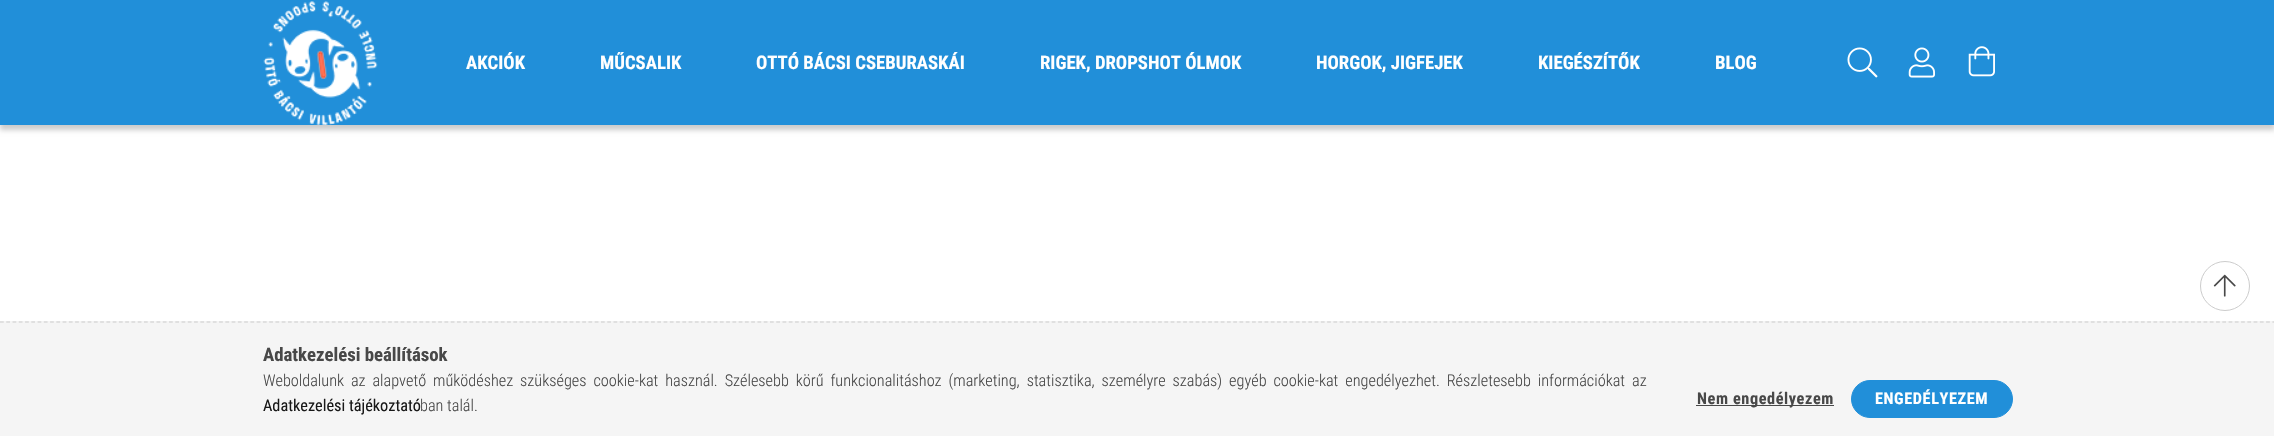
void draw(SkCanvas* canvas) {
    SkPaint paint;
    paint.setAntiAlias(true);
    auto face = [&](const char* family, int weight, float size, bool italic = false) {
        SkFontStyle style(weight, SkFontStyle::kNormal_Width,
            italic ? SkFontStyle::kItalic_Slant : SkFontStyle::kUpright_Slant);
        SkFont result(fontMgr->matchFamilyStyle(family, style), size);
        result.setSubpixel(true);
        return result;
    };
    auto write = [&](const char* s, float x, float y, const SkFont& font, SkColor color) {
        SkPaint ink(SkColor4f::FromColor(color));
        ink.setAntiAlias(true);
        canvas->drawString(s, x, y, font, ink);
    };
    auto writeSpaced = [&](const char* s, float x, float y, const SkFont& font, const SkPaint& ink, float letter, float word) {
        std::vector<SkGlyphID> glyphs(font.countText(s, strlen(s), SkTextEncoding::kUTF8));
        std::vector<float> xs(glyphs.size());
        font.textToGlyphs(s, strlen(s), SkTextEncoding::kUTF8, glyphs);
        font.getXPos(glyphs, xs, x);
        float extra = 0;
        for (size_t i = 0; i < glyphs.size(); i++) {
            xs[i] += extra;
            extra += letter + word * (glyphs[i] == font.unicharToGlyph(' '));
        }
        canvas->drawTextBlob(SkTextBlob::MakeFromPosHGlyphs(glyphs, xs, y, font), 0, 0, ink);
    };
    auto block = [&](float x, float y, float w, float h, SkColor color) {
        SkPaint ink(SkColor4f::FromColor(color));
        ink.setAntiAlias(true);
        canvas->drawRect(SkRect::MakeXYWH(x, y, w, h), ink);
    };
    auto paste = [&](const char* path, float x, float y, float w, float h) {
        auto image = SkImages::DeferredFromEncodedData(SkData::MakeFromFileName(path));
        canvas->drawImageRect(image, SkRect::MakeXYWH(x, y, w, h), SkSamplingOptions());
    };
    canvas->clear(SK_ColorWHITE);
    paint.setColor(SkColorSetARGB(51, 0, 0, 0));
    paint.setMaskFilter(SkMaskFilter::MakeBlur(kNormal_SkBlurStyle, 2.5f));
    canvas->drawRect(SkRect::MakeXYWH(0, 5, 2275, 125), paint);
    paint.setMaskFilter(nullptr);
    block(0, 0, 2274, 125, SkColorSetRGB(33, 143, 217));
    paste("pic1.png", 263, 1, 115, 124);
    auto kFont1 = face("Roboto Condensed", 700, 18.75f);
    write("AKCIÓK", 466, 69, kFont1, SK_ColorWHITE);
    write("MŰCSALIK", 600, 69, kFont1, SK_ColorWHITE);
    write("OTTÓ BÁCSI CSEBURASKÁI", 756, 69, kFont1, SK_ColorWHITE);
    write("RIGEK, DROPSHOT ÓLMOK", 1040, 69, kFont1, SK_ColorWHITE);
    write("HORGOK, JIGFEJEK", 1316, 69, kFont1, SK_ColorWHITE);
    write("KIEGÉSZÍTŐK", 1538, 69, kFont1, SK_ColorWHITE);
    write("BLOG", 1715, 69, kFont1, SK_ColorWHITE);
    paste("pic2.png", 1847, 47, 31, 31);
    paste("pic3.png", 1908, 47, 27, 31);
    paste("pic4.png", 1968, 46, 27, 31);
    paint.setStyle(SkPaint::kStroke_Style);
    paint.setStrokeWidth(1);
    paint.setColor(SkColorSetRGB(204, 204, 204));
    canvas->drawCircle(2225, 286, 24.5f, paint);
    paste("pic5.png", 2213, 274, 23, 23);
    block(0, 321, 2274, 115, SkColorSetRGB(245, 245, 245));
    paint.setStrokeWidth(1.2f);
    paint.setPathEffect(SkDashPathEffect::Make({{3.75f, 2.51f}}, 0));
    canvas->drawPath(SkPathBuilder().moveTo(0, 322).lineTo(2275, 322).detach(), paint);
    paint.setPathEffect(nullptr);
    write("Adatkezelési beállítások", 263, 361, kFont1, SkColorSetRGB(72, 72, 72));
    auto kFont2 = face("Roboto Condensed", 300, 16.25f);
    paint.setStyle(SkPaint::kFill_Style);
    paint.setColor(SkColorSetRGB(72, 72, 72));
    writeSpaced("Weboldalunk az alapvető működéshez szükséges cookie-kat használ. Szélesebb körű funkcionalitáshoz (marketing, statisztika, személyre szabás) egyéb cookie-kat engedélyezhet. Részletesebb információkat az", 263, 386, kFont2, paint, 0, 3.25f);
    auto kFont3 = face("Roboto Condensed", 400, 16.25f);
    write("Adatkezelési tájékoztató", 263, 411, kFont3, SkColorSetRGB(24, 24, 24));
    write("ban talál.", 420, 411, kFont2, SkColorSetRGB(72, 72, 72));
    block(1696, 405, 138, 1, SkColorSetRGB(72, 72, 72));
    auto kFont4 = face("Roboto Condensed", 700, 16.25f);
    writeSpaced("Nem engedélyezem", 1697, 404, kFont4, paint, 0.6f, 0);
    paint.setColor(SkColorSetRGB(33, 143, 217));
    canvas->drawRoundRect(SkRect::MakeXYWH(1851.5f, 380.5f, 161, 37), 18.5f, 18.5f, paint);
    paint.setStyle(SkPaint::kStroke_Style);
    paint.setStrokeWidth(1);
    canvas->drawRoundRect(SkRect::MakeXYWH(1851.5f, 380.5f, 161, 37), 18.5f, 18.5f, paint);
    paint.setStyle(SkPaint::kFill_Style);
    paint.setColor(SK_ColorWHITE);
    writeSpaced("ENGEDÉLYEZEM", 1875, 404, kFont4, paint, 0.6f, 0);
}
